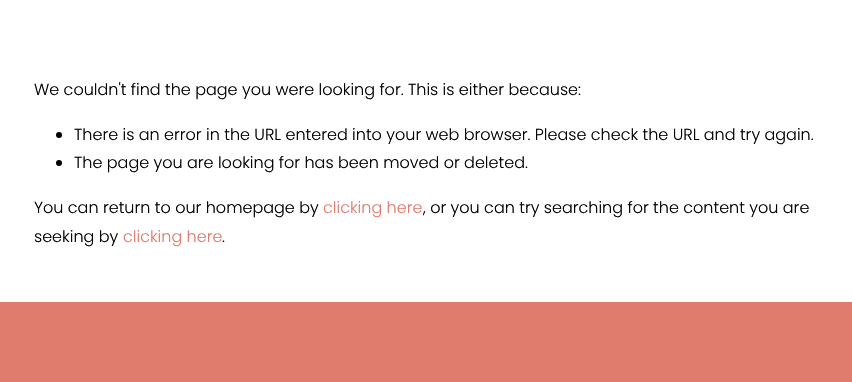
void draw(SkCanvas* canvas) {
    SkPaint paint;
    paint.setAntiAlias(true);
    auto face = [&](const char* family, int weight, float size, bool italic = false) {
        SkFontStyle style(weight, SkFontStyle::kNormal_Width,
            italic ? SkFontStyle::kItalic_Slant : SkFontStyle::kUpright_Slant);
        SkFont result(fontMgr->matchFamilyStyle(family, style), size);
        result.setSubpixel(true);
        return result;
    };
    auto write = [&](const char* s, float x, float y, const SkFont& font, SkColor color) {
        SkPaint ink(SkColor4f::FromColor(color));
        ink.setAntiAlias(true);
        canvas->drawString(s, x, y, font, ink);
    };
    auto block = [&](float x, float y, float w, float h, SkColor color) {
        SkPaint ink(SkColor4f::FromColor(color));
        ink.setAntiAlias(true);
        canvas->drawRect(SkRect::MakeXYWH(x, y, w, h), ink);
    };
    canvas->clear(SK_ColorWHITE);
    auto kFont1 = face("Poppins", 300, 16);
    write("We couldn't find the page you were looking for. This is either because:", 34, 95, kFont1, SK_ColorBLACK);
    paint.setColor(SK_ColorBLACK);
    canvas->drawCircle(59, 135, 3, paint);
    write("There is an error in the URL entered into your web browser. Please check the URL and try again.", 74, 140, kFont1, SK_ColorBLACK);
    canvas->drawCircle(59, 163, 3, paint);
    write("The page you are looking for has been moved or deleted.", 74, 168, kFont1, SK_ColorBLACK);
    write("You can return to our homepage by", 34, 213, kFont1, SK_ColorBLACK);
    write("clicking here", 323, 213, kFont1, SkColorSetRGB(223, 124, 109));
    write(", or you can try searching for the content you are", 423, 213, kFont1, SK_ColorBLACK);
    write("seeking by", 34, 242, kFont1, SK_ColorBLACK);
    write("clicking here", 123, 242, kFont1, SkColorSetRGB(223, 124, 109));
    write(".", 222, 242, kFont1, SK_ColorBLACK);
    block(0, 302, 852, 80, SkColorSetRGB(223, 124, 109));
}
